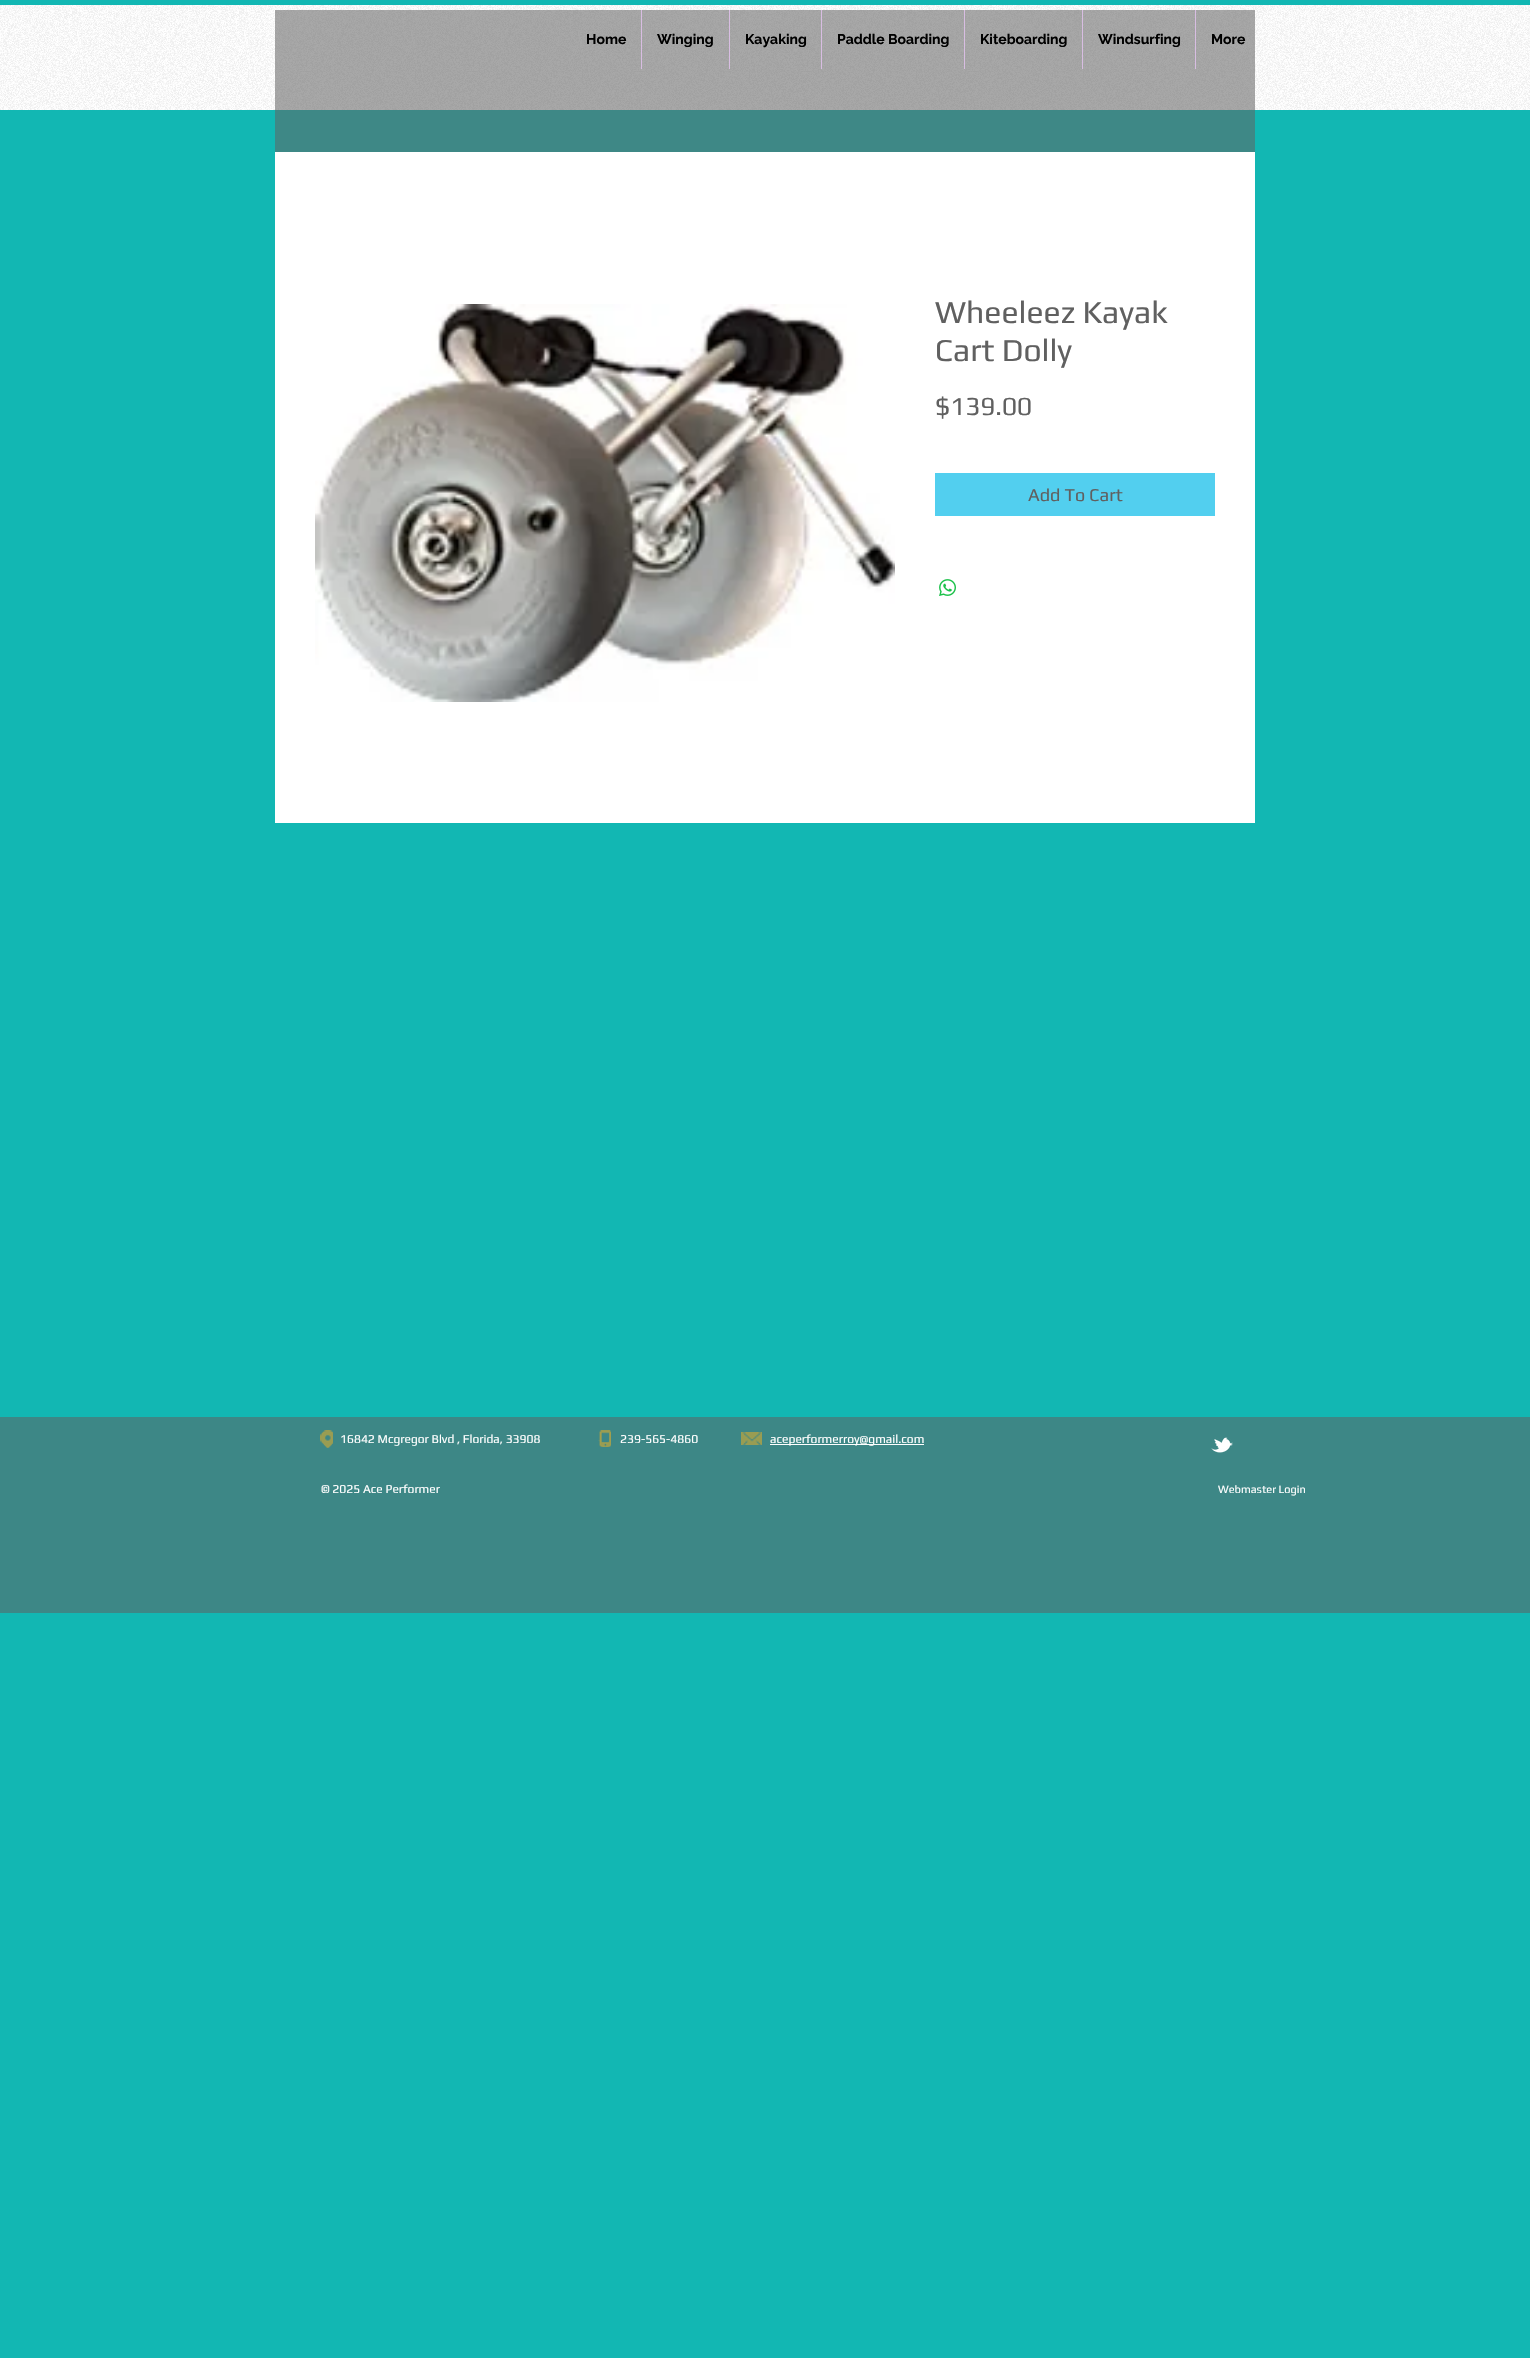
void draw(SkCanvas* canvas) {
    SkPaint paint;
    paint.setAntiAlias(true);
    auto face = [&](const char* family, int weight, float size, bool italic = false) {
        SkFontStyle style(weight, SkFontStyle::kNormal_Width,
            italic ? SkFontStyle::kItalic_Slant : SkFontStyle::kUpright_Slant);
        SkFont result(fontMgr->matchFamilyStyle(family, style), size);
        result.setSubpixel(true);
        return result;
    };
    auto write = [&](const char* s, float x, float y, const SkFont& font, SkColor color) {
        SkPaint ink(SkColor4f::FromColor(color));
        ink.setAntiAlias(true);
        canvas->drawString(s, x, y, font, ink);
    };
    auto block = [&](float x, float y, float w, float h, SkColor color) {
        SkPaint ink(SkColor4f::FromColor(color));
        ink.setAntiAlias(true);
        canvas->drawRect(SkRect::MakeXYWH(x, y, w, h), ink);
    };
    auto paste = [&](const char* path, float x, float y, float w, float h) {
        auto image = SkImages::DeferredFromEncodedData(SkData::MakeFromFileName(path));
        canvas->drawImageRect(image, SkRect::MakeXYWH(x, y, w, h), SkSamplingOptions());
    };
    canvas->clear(SkColorSetRGB(18, 183, 179));
    block(0, 5, 1530, 105, SK_ColorWHITE);
    paste("pic1.png", 0, 5, 1530, 105);
    block(275, 10, 980, 142, SkColorSetARGB(140, 96, 96, 96));
    auto kFont1 = face("Raleway", 700, 14);
    write("Home", 586, 44, kFont1, SK_ColorBLACK);
    block(641, 10, 1, 59, SkColorSetRGB(216, 189, 226));
    write("Winging", 657, 44, kFont1, SK_ColorBLACK);
    block(729, 10, 1, 59, SkColorSetRGB(216, 189, 226));
    write("Kayaking", 745, 44, kFont1, SK_ColorBLACK);
    block(821, 10, 1, 59, SkColorSetRGB(216, 189, 226));
    write("Paddle Boarding", 837, 44, kFont1, SK_ColorBLACK);
    block(964, 10, 1, 59, SkColorSetRGB(216, 189, 226));
    write("Kiteboarding", 980, 44, kFont1, SK_ColorBLACK);
    block(1082, 10, 1, 59, SkColorSetRGB(216, 189, 226));
    write("Windsurfing", 1098, 44, kFont1, SK_ColorBLACK);
    block(1195, 10, 1, 59, SkColorSetRGB(216, 189, 226));
    write("More", 1211, 44, kFont1, SK_ColorBLACK);
    block(275, 152, 980, 671, SK_ColorWHITE);
    paste("pic2.png", 315, 304, 580, 398);
    auto kFont2 = face("Play", 400, 32);
    write("Wheeleez Kayak", 935, 323, kFont2, SkColorSetRGB(96, 96, 96));
    write("Cart Dolly", 935, 361, kFont2, SkColorSetRGB(96, 96, 96));
    auto kFont3 = face("Play", 400, 26);
    write("$139.00", 935, 415, kFont3, SkColorSetRGB(96, 96, 96));
    block(935, 473, 280, 43, SkColorSetRGB(82, 207, 239));
    auto kFont4 = face("Play", 400, 18);
    write("Add To Cart", 1028, 501, kFont4, SkColorSetRGB(96, 96, 96));
    paste("pic3.png", 939, 579, 17, 17);
    block(0, 1417, 1530, 196, SkColorSetRGB(61, 135, 134));
    paste("pic4.png", 320, 1430, 13, 18);
    auto kFont5 = face("Play", 400, 12);
    write("16842 Mcgregor Blvd , Florida, 33908", 340, 1443, kFont5, SK_ColorWHITE);
    paste("pic5.png", 598, 1430, 13, 17);
    write("239-565-4860", 620, 1443, kFont5, SK_ColorWHITE);
    paste("pic6.png", 741, 1432, 21, 13);
    block(770, 1444, 154, 1, SK_ColorWHITE);
    write("aceperformerroy@gmail.com", 770, 1443, kFont5, SK_ColorWHITE);
    paste("pic7.png", 1211, 1437, 22, 16);
    write("© 2025 Ace Performer", 321, 1493, kFont5, SK_ColorWHITE);
    auto kFont6 = face("Play", 400, 11);
    write("Webmaster Login", 1218, 1493, kFont6, SK_ColorWHITE);
}
